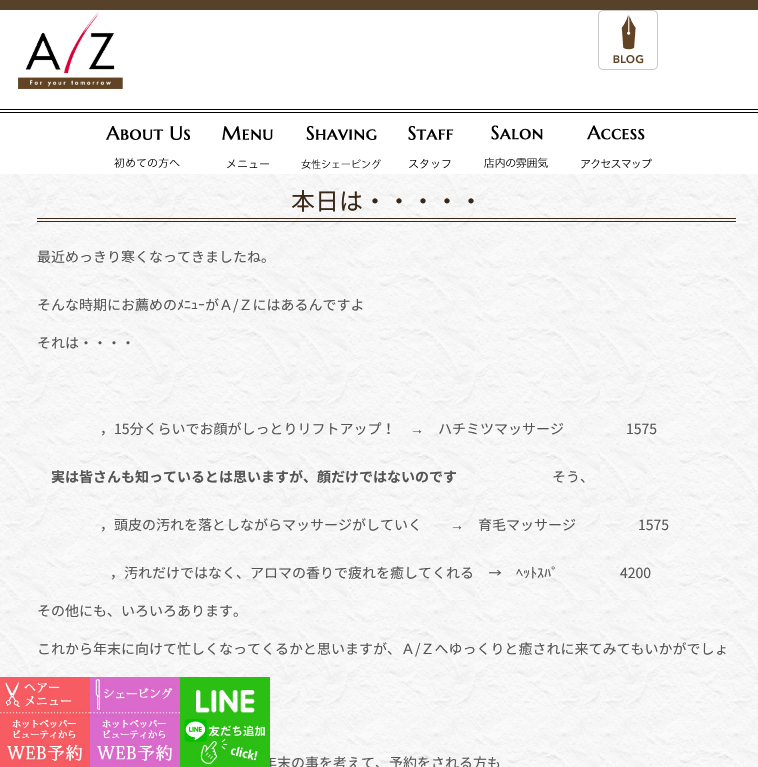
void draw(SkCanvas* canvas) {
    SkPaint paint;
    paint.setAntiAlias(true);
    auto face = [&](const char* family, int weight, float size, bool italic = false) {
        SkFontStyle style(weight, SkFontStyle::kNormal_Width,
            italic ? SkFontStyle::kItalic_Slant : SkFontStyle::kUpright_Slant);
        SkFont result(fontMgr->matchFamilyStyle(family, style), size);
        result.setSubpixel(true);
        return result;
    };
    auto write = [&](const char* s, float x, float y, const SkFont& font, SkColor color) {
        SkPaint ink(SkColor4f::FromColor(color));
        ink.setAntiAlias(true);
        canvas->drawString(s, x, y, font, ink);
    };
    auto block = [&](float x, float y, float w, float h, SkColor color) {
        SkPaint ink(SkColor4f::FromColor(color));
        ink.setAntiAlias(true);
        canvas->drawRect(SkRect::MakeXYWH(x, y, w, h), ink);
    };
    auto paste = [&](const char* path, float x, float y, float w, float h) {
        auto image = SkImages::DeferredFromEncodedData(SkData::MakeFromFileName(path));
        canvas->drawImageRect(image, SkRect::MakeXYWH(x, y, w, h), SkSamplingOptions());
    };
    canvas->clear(SK_ColorWHITE);
    paste("pic1.png", 0, 174, 758, 593);
    block(0, 0, 758, 10, SkColorSetRGB(87, 65, 41));
    paste("pic2.png", 18, 11, 105, 78);
    paste("pic3.png", 598, 10, 60, 60);
    block(0, 109, 758, 1, SK_ColorBLACK);
    block(0, 112, 758, 1, SK_ColorBLACK);
    paste("pic4.png", 106, 126, 84, 42);
    paste("pic5.png", 222, 126, 51, 43);
    paste("pic6.png", 301, 126, 80, 43);
    paste("pic7.png", 408, 126, 46, 43);
    paste("pic8.png", 484, 125, 64, 43);
    paste("pic9.png", 581, 125, 71, 44);
    block(37, 218, 699, 1, SkColorSetRGB(57, 40, 23));
    block(37, 221, 699, 1, SkColorSetRGB(57, 40, 23));
    auto kFont1 = face("Noto Sans JP", 400, 24);
    write("本日は・・・・・", 291, 210, kFont1, SkColorSetRGB(57, 40, 23));
    auto kFont2 = face("Noto Sans JP", 400, 14);
    write("最近めっきり寒くなってきましたね。", 37, 262, kFont2, SkColorSetRGB(85, 85, 85));
    write("そんな時期にお薦めの", 37, 310, kFont2, SkColorSetRGB(85, 85, 85));
    auto kFont3 = face("IPAPGothic", 400, 14);
    write("ﾒﾆｭｰ", 177, 310, kFont3, SkColorSetRGB(85, 85, 85));
    write("がＡ/Ｚにはあるんですよ", 205, 310, kFont2, SkColorSetRGB(85, 85, 85));
    write("それは・・・・", 37, 348, kFont2, SkColorSetRGB(85, 85, 85));
    write("，15分くらいでお顔がしっとりリフトアップ！", 100, 434, kFont2, SkColorSetRGB(85, 85, 85));
    auto kFont4 = face("Liberation Sans", 400, 14);
    write("→", 410, 434, kFont4, SkColorSetRGB(85, 85, 85));
    write("ハチミツマッサージ", 438, 434, kFont2, SkColorSetRGB(85, 85, 85));
    write("1575", 626, 434, kFont2, SkColorSetRGB(85, 85, 85));
    auto kFont5 = face("Noto Sans JP", 700, 14);
    write("実は皆さんも知っているとは思いますが、顔だけではないのです", 51, 482, kFont5, SkColorSetRGB(85, 85, 85));
    write("そう、", 552, 482, kFont2, SkColorSetRGB(85, 85, 85));
    write("，頭皮の汚れを落としながらマッサージがしていく", 100, 530, kFont2, SkColorSetRGB(85, 85, 85));
    write("→", 450, 530, kFont4, SkColorSetRGB(85, 85, 85));
    write("育毛マッサージ", 478, 530, kFont2, SkColorSetRGB(85, 85, 85));
    write("1575", 638, 530, kFont2, SkColorSetRGB(85, 85, 85));
    write("，汚れだけではなく、アロマの香りで疲れを癒してくれる", 110, 578, kFont2, SkColorSetRGB(85, 85, 85));
    write("→", 488, 578, kFont3, SkColorSetRGB(85, 85, 85));
    write("ﾍｯﾄｽﾊﾟ", 516, 578, kFont3, SkColorSetRGB(85, 85, 85));
    write("4200", 620, 578, kFont2, SkColorSetRGB(85, 85, 85));
    write("その他にも、いろいろあります。", 37, 616, kFont2, SkColorSetRGB(85, 85, 85));
    write("これから年末に向けて忙しくなってくるかと思いますが、Ａ/Ｚへゆっくりと癒されに来てみてもいかがでしょ", 37, 654, kFont2, SkColorSetRGB(85, 85, 85));
    write("年末の事を考えて、予約をされる方も", 263, 768, kFont2, SkColorSetRGB(85, 85, 85));
    paste("pic10.png", 0, 677, 90, 90);
    paste("pic11.png", 90, 677, 90, 90);
    paste("pic12.png", 180, 677, 90, 90);
}
